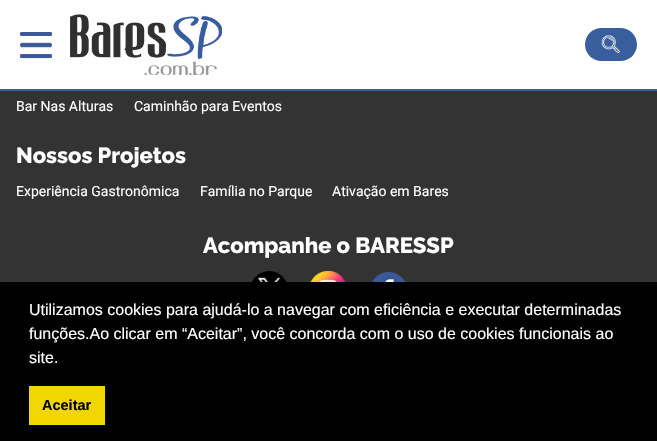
void draw(SkCanvas* canvas) {
    SkPaint paint;
    paint.setAntiAlias(true);
    auto face = [&](const char* family, int weight, float size, bool italic = false) {
        SkFontStyle style(weight, SkFontStyle::kNormal_Width,
            italic ? SkFontStyle::kItalic_Slant : SkFontStyle::kUpright_Slant);
        SkFont result(fontMgr->matchFamilyStyle(family, style), size);
        result.setSubpixel(true);
        return result;
    };
    auto write = [&](const char* s, float x, float y, const SkFont& font, SkColor color) {
        SkPaint ink(SkColor4f::FromColor(color));
        ink.setAntiAlias(true);
        canvas->drawString(s, x, y, font, ink);
    };
    auto block = [&](float x, float y, float w, float h, SkColor color) {
        SkPaint ink(SkColor4f::FromColor(color));
        ink.setAntiAlias(true);
        canvas->drawRect(SkRect::MakeXYWH(x, y, w, h), ink);
    };
    auto card = [&](float x, float y, float w, float h, float radius, SkColor color) {
        SkPaint ink(SkColor4f::FromColor(color));
        ink.setAntiAlias(true);
        canvas->drawRoundRect(SkRect::MakeXYWH(x, y, w, h), radius, radius, ink);
    };
    auto paste = [&](const char* path, float x, float y, float w, float h) {
        auto image = SkImages::DeferredFromEncodedData(SkData::MakeFromFileName(path));
        canvas->drawImageRect(image, SkRect::MakeXYWH(x, y, w, h), SkSamplingOptions());
    };
    canvas->clear(SkColorSetRGB(51, 51, 51));
    block(0, 0, 657, 89, SK_ColorWHITE);
    block(0, 89, 657, 2, SkColorSetRGB(57, 94, 157));
    paste("pic1.png", 20, 32, 32, 27);
    paste("pic2.png", 70, 14, 152, 61);
    card(585, 28, 52, 33, 16.5f, SkColorSetRGB(57, 94, 157));
    paste("pic3.png", 601, 35, 19, 18);
    auto kFont1 = face("Roboto", 400, 14);
    write("Bar Nas Alturas", 16, 111, kFont1, SK_ColorWHITE);
    write("Caminhão para Eventos", 134, 111, kFont1, SK_ColorWHITE);
    auto kFont2 = face("Raleway", 800, 22);
    write("Nossos Projetos", 16, 163, kFont2, SK_ColorWHITE);
    write("Experiência Gastronômica", 16, 196, kFont1, SK_ColorWHITE);
    write("Família no Parque", 200, 196, kFont1, SK_ColorWHITE);
    write("Ativação em Bares", 332, 196, kFont1, SK_ColorWHITE);
    write("Acompanhe o BARESSP", 203, 253, kFont2, SK_ColorWHITE);
    paste("pic4.png", 251, 271, 36, 11);
    paste("pic5.png", 310, 271, 36, 11);
    paste("pic6.png", 371, 272, 35, 10);
    block(0, 282, 657, 159, SK_ColorBLACK);
    auto kFont3 = face("Liberation Sans", 400, 16);
    write("Utilizamos cookies para ajudá-lo a navegar com eficiência e executar determinadas", 29, 315, kFont3, SK_ColorWHITE);
    write("funções.Ao clicar em “Aceitar”, você concorda com o uso de cookies funcionais ao", 29, 339, kFont3, SK_ColorWHITE);
    write("site.", 29, 363, kFont3, SK_ColorWHITE);
    block(29, 386, 76, 39, SkColorSetRGB(241, 214, 0));
    auto kFont4 = face("Liberation Sans", 700, 14.5f);
    write("Aceitar", 42, 410, kFont4, SK_ColorBLACK);
}
